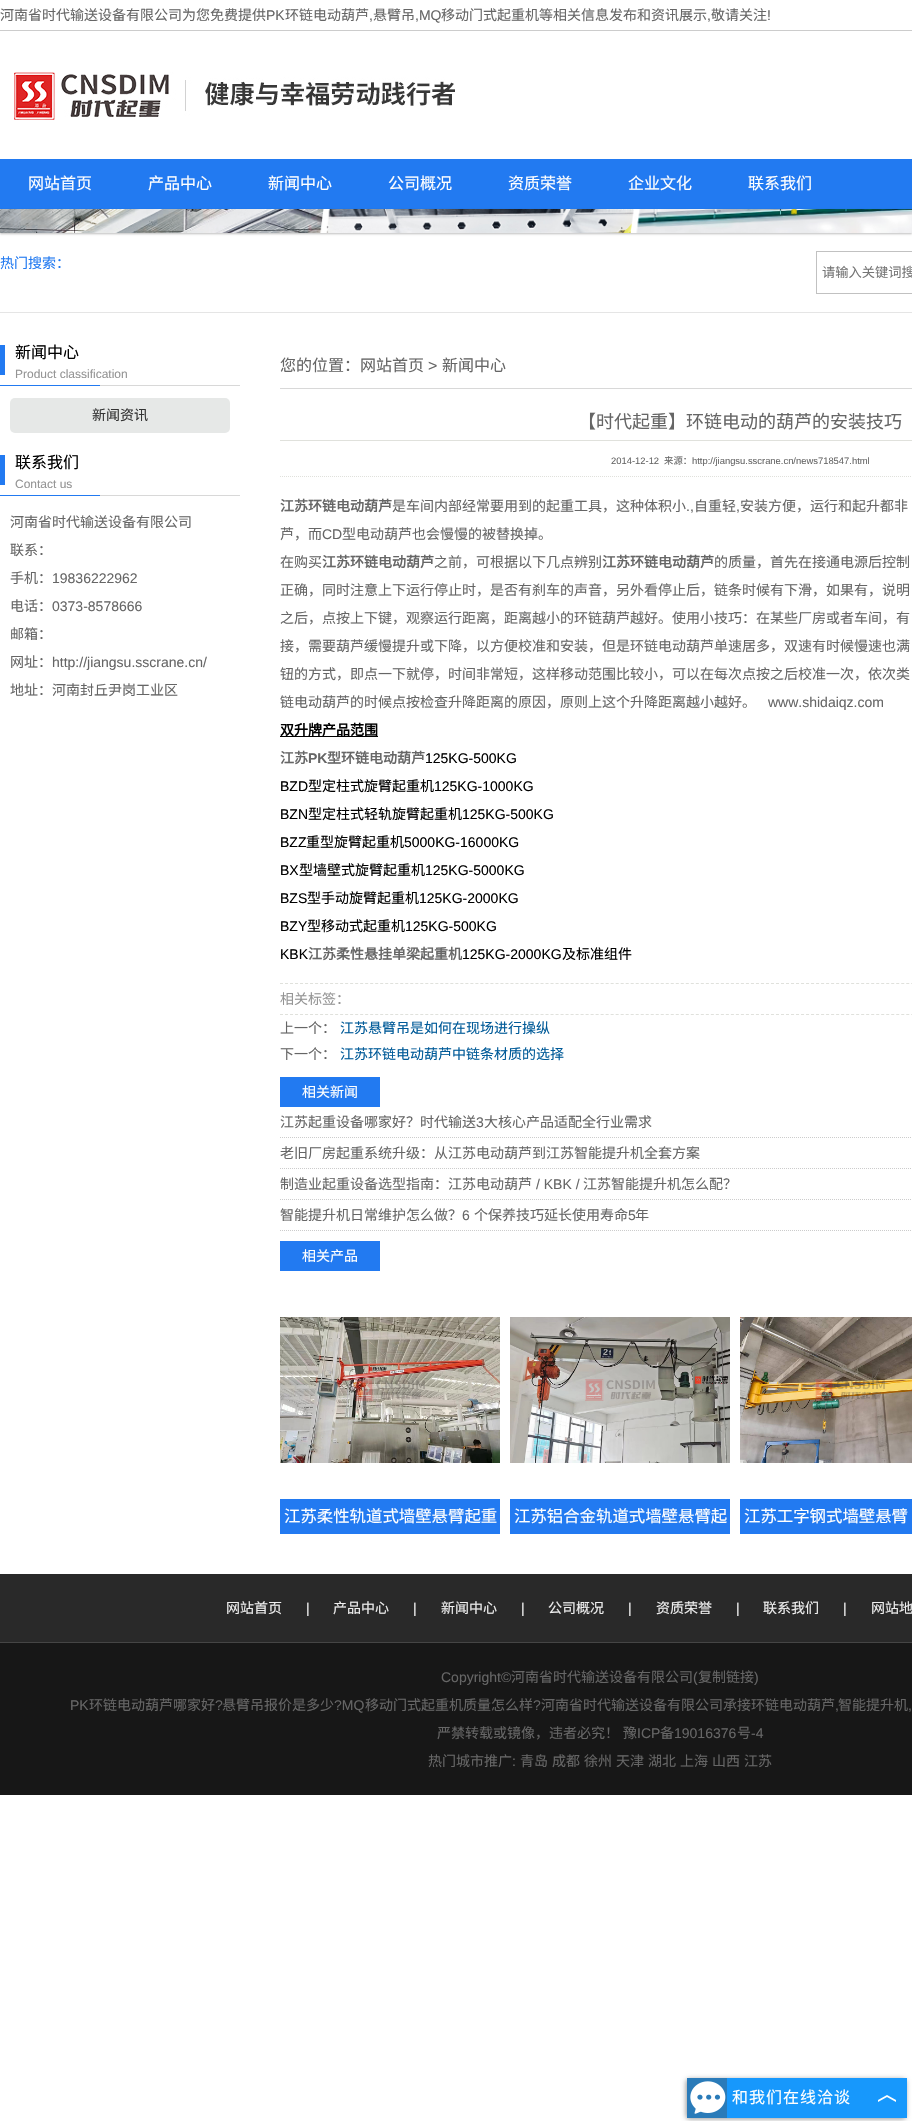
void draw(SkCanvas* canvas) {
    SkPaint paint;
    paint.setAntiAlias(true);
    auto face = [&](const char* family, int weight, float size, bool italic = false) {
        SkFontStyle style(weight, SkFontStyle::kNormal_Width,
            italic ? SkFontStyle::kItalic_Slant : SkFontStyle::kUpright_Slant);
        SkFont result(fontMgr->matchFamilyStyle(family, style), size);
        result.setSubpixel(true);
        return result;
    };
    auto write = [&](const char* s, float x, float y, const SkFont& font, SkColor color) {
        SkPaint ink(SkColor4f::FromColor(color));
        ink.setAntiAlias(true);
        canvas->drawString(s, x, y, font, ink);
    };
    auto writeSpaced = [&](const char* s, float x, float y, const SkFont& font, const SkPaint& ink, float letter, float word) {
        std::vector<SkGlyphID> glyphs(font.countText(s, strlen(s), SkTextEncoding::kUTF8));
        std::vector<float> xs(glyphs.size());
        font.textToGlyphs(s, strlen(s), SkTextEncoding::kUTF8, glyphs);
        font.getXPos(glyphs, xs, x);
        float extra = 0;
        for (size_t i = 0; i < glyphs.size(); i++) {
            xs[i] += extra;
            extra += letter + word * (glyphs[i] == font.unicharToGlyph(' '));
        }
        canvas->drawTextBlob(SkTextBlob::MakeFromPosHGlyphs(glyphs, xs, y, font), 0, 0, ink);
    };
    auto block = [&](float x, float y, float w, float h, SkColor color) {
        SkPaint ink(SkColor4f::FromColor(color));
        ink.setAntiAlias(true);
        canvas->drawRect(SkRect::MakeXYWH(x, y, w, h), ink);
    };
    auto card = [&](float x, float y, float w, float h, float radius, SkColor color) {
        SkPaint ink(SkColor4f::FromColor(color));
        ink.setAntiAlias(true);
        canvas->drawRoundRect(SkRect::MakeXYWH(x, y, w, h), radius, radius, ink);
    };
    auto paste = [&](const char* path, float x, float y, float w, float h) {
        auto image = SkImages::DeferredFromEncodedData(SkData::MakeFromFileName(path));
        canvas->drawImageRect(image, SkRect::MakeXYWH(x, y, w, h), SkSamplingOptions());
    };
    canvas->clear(SK_ColorWHITE);
    block(0, 30, 912, 1, SkColorSetRGB(204, 204, 204));
    auto kFont1 = face("Noto Sans CJK SC", 400, 14);
    write("河南省时代输送设备有限公司为您免费提供", 0, 20, kFont1, SkColorSetRGB(102, 102, 102));
    auto kFont2 = face("Liberation Sans", 400, 14);
    write("PK", 266, 20, kFont2, SkColorSetRGB(102, 102, 102));
    write("环链电动葫芦", 285, 20, kFont1, SkColorSetRGB(102, 102, 102));
    write(",", 369, 20, kFont2, SkColorSetRGB(102, 102, 102));
    write("悬臂吊", 373, 20, kFont1, SkColorSetRGB(102, 102, 102));
    write(",MQ", 415, 20, kFont2, SkColorSetRGB(102, 102, 102));
    write("移动门式起重机等相关信息发布和资讯展示", 441, 20, kFont1, SkColorSetRGB(102, 102, 102));
    write(",", 707, 20, kFont2, SkColorSetRGB(102, 102, 102));
    write("敬请关注", 711, 20, kFont1, SkColorSetRGB(102, 102, 102));
    write("!", 767, 20, kFont2, SkColorSetRGB(102, 102, 102));
    paste("pic1.png", 14, 72, 441, 48);
    block(0, 159, 912, 50, SkColorSetRGB(34, 122, 241));
    auto kFont3 = face("Noto Sans CJK SC", 400, 16);
    write("网站首页", 28, 189, kFont3, SK_ColorWHITE);
    write("产品中心", 148, 189, kFont3, SK_ColorWHITE);
    write("新闻中心", 268, 189, kFont3, SK_ColorWHITE);
    write("公司概况", 388, 189, kFont3, SK_ColorWHITE);
    write("资质荣誉", 508, 189, kFont3, SK_ColorWHITE);
    write("企业文化", 628, 189, kFont3, SK_ColorWHITE);
    write("联系我们", 748, 189, kFont3, SK_ColorWHITE);
    paint.setColor(SkColorSetARGB(64, 0, 0, 0));
    paint.setMaskFilter(SkMaskFilter::MakeBlur(kNormal_SkBlurStyle, 1));
    canvas->drawRect(SkRect::MakeXYWH(0, 210, 912, 24), paint);
    paint.setMaskFilter(nullptr);
    paste("pic2.png", 0, 209, 912, 24);
    block(0, 312, 912, 1, SkColorSetRGB(229, 229, 229));
    write("热门搜索：", 0, 268, kFont1, SkColorSetRGB(34, 122, 241));
    paint.setStyle(SkPaint::kStroke_Style);
    paint.setStrokeWidth(1);
    paint.setColor(SkColorSetRGB(193, 193, 193));
    canvas->drawRect(SkRect::MakeXYWH(816.5f, 251.5f, 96, 42), paint);
    auto kFont4 = face("Noto Sans CJK SC", 400, 13.25f);
    write("请输入关键词搜", 822, 277, kFont4, SkColorSetRGB(117, 117, 117));
    paste("pic3.png", 0, 345, 240, 41);
    write("新闻中心", 15, 358, kFont3, SK_ColorBLACK);
    auto kFont5 = face("Liberation Sans", 400, 12);
    write("Product classification", 15, 378, kFont5, SkColorSetRGB(148, 148, 148));
    card(10, 398, 220, 35, 5, SkColorSetRGB(230, 232, 231));
    write("新闻资讯", 92, 420, kFont1, SkColorSetRGB(51, 51, 51));
    paste("pic3.png", 0, 455, 240, 41);
    write("联系我们", 15, 468, kFont3, SK_ColorBLACK);
    write("Contact us", 15, 488, kFont5, SkColorSetRGB(148, 148, 148));
    write("河南省时代输送设备有限公司", 10, 527, kFont1, SkColorSetRGB(102, 102, 102));
    write("联系：", 10, 555, kFont1, SkColorSetRGB(102, 102, 102));
    write("手机：", 10, 583, kFont1, SkColorSetRGB(102, 102, 102));
    write("19836222962", 52, 583, kFont2, SkColorSetRGB(102, 102, 102));
    write("电话：", 10, 611, kFont1, SkColorSetRGB(102, 102, 102));
    write("0373-8578666", 52, 611, kFont2, SkColorSetRGB(102, 102, 102));
    write("邮箱：", 10, 639, kFont1, SkColorSetRGB(102, 102, 102));
    write("网址：", 10, 667, kFont1, SkColorSetRGB(102, 102, 102));
    write("http://jiangsu.sscrane.cn/", 52, 667, kFont2, SkColorSetRGB(102, 102, 102));
    write("地址：河南封丘尹岗工业区", 10, 695, kFont1, SkColorSetRGB(102, 102, 102));
    block(280, 388, 632, 1, SkColorSetRGB(216, 216, 216));
    write("您的位置：网站首页", 280, 371, kFont3, SkColorSetRGB(102, 102, 102));
    auto kFont6 = face("Liberation Sans", 400, 16);
    write(">", 428, 371, kFont6, SkColorSetRGB(102, 102, 102));
    write("新闻中心", 442, 371, kFont3, SkColorSetRGB(102, 102, 102));
    block(280, 440, 632, 1, SkColorSetRGB(224, 225, 220));
    auto kFont7 = face("Noto Sans CJK SC", 400, 18);
    write("【时代起重】环链电动的葫芦的安装技巧", 578, 428, kFont7, SkColorSetRGB(102, 102, 102));
    paint.setColor(SkColorSetRGB(224, 225, 220));
    paint.setPathEffect(SkDashPathEffect::Make({{1, 1}}, 0));
    canvas->drawPath(SkPathBuilder().moveTo(280, 476.5f).lineTo(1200, 476.5f).detach(), paint);
    paint.setPathEffect(nullptr);
    auto kFont8 = face("Liberation Sans", 400, 9.4f);
    write("2014-12-12", 611, 464, kFont8, SkColorSetRGB(102, 102, 102));
    auto kFont9 = face("Noto Sans CJK SC", 400, 9.4f);
    write("来源：", 664, 464, kFont9, SkColorSetRGB(102, 102, 102));
    write("http://jiangsu.sscrane.cn/news718547.html", 692, 464, kFont8, SkColorSetRGB(102, 102, 102));
    auto kFont10 = face("Noto Sans CJK SC", 700, 14);
    write("江苏环链电动葫芦", 280, 511, kFont10, SkColorSetRGB(102, 102, 102));
    write("是车间内部经常要用到的起重工具，这种体积小", 392, 511, kFont1, SkColorSetRGB(102, 102, 102));
    write(".,", 686, 511, kFont2, SkColorSetRGB(102, 102, 102));
    write("自重轻", 694, 511, kFont1, SkColorSetRGB(102, 102, 102));
    write(",", 736, 511, kFont2, SkColorSetRGB(102, 102, 102));
    write("安装方便，运行和起升都非", 740, 511, kFont1, SkColorSetRGB(102, 102, 102));
    write("芦，而", 280, 539, kFont1, SkColorSetRGB(102, 102, 102));
    write("CD", 322, 539, kFont2, SkColorSetRGB(102, 102, 102));
    write("型电动葫芦也会慢慢的被替换掉。", 342, 539, kFont1, SkColorSetRGB(102, 102, 102));
    write("在购买", 280, 567, kFont1, SkColorSetRGB(102, 102, 102));
    write("江苏环链电动葫芦", 322, 567, kFont10, SkColorSetRGB(102, 102, 102));
    write("之前，可根据以下几点辨别", 434, 567, kFont1, SkColorSetRGB(102, 102, 102));
    write("江苏环链电动葫芦", 602, 567, kFont10, SkColorSetRGB(102, 102, 102));
    write("的质量，首先在接通电源后控制", 714, 567, kFont1, SkColorSetRGB(102, 102, 102));
    write("正确，同时注意上下运行停止时，是否有刹车的声音，另外看停止后，链条时候有下滑，如果有，说明", 280, 595, kFont1, SkColorSetRGB(102, 102, 102));
    write("之后，点按上下键，观察运行距离，距离越小的环链葫芦越好。使用小技巧：在某些厂房或者车间，有", 280, 623, kFont1, SkColorSetRGB(102, 102, 102));
    write("接，需要葫芦缓慢提升或下降，以方便校准和安装，但是环链电动葫芦单速居多，双速有时候慢速也满", 280, 651, kFont1, SkColorSetRGB(102, 102, 102));
    write("钮的方式，即点一下就停，时间非常短，这样移动范围比较小，可以在每次点按之后校准一次，依次类", 280, 679, kFont1, SkColorSetRGB(102, 102, 102));
    write("链电动葫芦的时候点按检查升降距离的原因，原则上这个升降距离越小越好。", 280, 707, kFont1, SkColorSetRGB(102, 102, 102));
    write("www.shidaiqz.com", 768, 707, kFont2, SkColorSetRGB(102, 102, 102));
    block(280, 736, 98, 1, SK_ColorBLACK);
    write("双升牌产品范围", 280, 735, kFont10, SK_ColorBLACK);
    write("江苏", 280, 763, kFont10, SkColorSetRGB(102, 102, 102));
    auto kFont11 = face("Liberation Sans", 700, 14);
    write("PK", 308, 763, kFont11, SkColorSetRGB(102, 102, 102));
    write("型环链电动葫芦", 327, 763, kFont10, SkColorSetRGB(102, 102, 102));
    write("125KG-500KG", 425, 763, kFont2, SK_ColorBLACK);
    write("BZD", 280, 791, kFont2, SK_ColorBLACK);
    write("型定柱式旋臂起重机", 308, 791, kFont1, SK_ColorBLACK);
    write("125KG-1000KG", 434, 791, kFont2, SK_ColorBLACK);
    write("BZN", 280, 819, kFont2, SK_ColorBLACK);
    write("型定柱式轻轨旋臂起重机", 308, 819, kFont1, SK_ColorBLACK);
    write("125KG-500KG", 462, 819, kFont2, SK_ColorBLACK);
    write("BZZ", 280, 847, kFont2, SK_ColorBLACK);
    write("重型旋臂起重机", 306, 847, kFont1, SK_ColorBLACK);
    write("5000KG-16000KG", 404, 847, kFont2, SK_ColorBLACK);
    write("BX", 280, 875, kFont2, SK_ColorBLACK);
    write("型墙壁式旋臂起重机", 299, 875, kFont1, SK_ColorBLACK);
    write("125KG-5000KG", 425, 875, kFont2, SK_ColorBLACK);
    write("BZS", 280, 903, kFont2, SK_ColorBLACK);
    write("型手动旋臂起重机", 307, 903, kFont1, SK_ColorBLACK);
    write("125KG-2000KG", 419, 903, kFont2, SK_ColorBLACK);
    write("BZY", 280, 931, kFont2, SK_ColorBLACK);
    write("型移动式起重机", 307, 931, kFont1, SK_ColorBLACK);
    write("125KG-500KG", 405, 931, kFont2, SK_ColorBLACK);
    write("KBK", 280, 959, kFont2, SK_ColorBLACK);
    write("江苏柔性悬挂单梁起重机", 308, 959, kFont10, SkColorSetRGB(102, 102, 102));
    write("125KG-2000KG", 462, 959, kFont2, SK_ColorBLACK);
    write("及标准组件", 562, 959, kFont1, SK_ColorBLACK);
    paint.setPathEffect(SkDashPathEffect::Make({{3, 2.01f}}, 0));
    canvas->drawPath(SkPathBuilder().moveTo(280, 983.5f).lineTo(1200, 983.5f).detach(), paint);
    paint.setPathEffect(nullptr);
    write("相关标签：", 280, 1004, kFont1, SkColorSetRGB(148, 148, 148));
    paint.setPathEffect(SkDashPathEffect::Make({{3, 2.01f}}, 0));
    canvas->drawPath(SkPathBuilder().moveTo(280, 1014.5f).lineTo(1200, 1014.5f).detach(), paint);
    paint.setPathEffect(nullptr);
    write("上一个：", 280, 1033, kFont1, SkColorSetRGB(102, 102, 102));
    write("江苏悬臂吊是如何在现场进行操纵", 340, 1033, kFont1, SkColorSetRGB(0, 90, 152));
    write("下一个：", 280, 1059, kFont1, SkColorSetRGB(102, 102, 102));
    write("江苏环链电动葫芦中链条材质的选择", 340, 1059, kFont1, SkColorSetRGB(0, 90, 152));
    block(280, 1077, 100, 30, SkColorSetRGB(34, 122, 241));
    write("相关新闻", 302, 1097, kFont1, SK_ColorWHITE);
    paint.setColor(SkColorSetRGB(204, 204, 204));
    paint.setPathEffect(SkDashPathEffect::Make({{1, 1}}, 0));
    canvas->drawPath(SkPathBuilder().moveTo(280, 1137.5f).lineTo(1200, 1137.5f).detach(), paint);
    paint.setPathEffect(nullptr);
    write("江苏起重设备哪家好？时代输送", 280, 1127, kFont1, SkColorSetRGB(102, 102, 102));
    write("3", 476, 1127, kFont2, SkColorSetRGB(102, 102, 102));
    write("大核心产品适配全行业需求", 484, 1127, kFont1, SkColorSetRGB(102, 102, 102));
    paint.setPathEffect(SkDashPathEffect::Make({{1, 1}}, 0));
    canvas->drawPath(SkPathBuilder().moveTo(280, 1168.5f).lineTo(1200, 1168.5f).detach(), paint);
    paint.setPathEffect(nullptr);
    write("老旧厂房起重系统升级：从江苏电动葫芦到江苏智能提升机全套方案", 280, 1158, kFont1, SkColorSetRGB(102, 102, 102));
    paint.setPathEffect(SkDashPathEffect::Make({{1, 1}}, 0));
    canvas->drawPath(SkPathBuilder().moveTo(280, 1199.5f).lineTo(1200, 1199.5f).detach(), paint);
    paint.setPathEffect(nullptr);
    write("制造业起重设备选型指南：江苏电动葫芦", 280, 1189, kFont1, SkColorSetRGB(102, 102, 102));
    write("/ KBK /", 536, 1189, kFont2, SkColorSetRGB(102, 102, 102));
    write("江苏智能提升机怎么配？", 583, 1189, kFont1, SkColorSetRGB(102, 102, 102));
    paint.setPathEffect(SkDashPathEffect::Make({{1, 1}}, 0));
    canvas->drawPath(SkPathBuilder().moveTo(280, 1230.5f).lineTo(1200, 1230.5f).detach(), paint);
    paint.setPathEffect(nullptr);
    write("智能提升机日常维护怎么做？", 280, 1220, kFont1, SkColorSetRGB(102, 102, 102));
    write("6", 462, 1220, kFont2, SkColorSetRGB(102, 102, 102));
    write("个保养技巧延长使用寿命", 474, 1220, kFont1, SkColorSetRGB(102, 102, 102));
    write("5", 628, 1220, kFont2, SkColorSetRGB(102, 102, 102));
    write("年", 635, 1220, kFont1, SkColorSetRGB(102, 102, 102));
    block(280, 1241, 100, 30, SkColorSetRGB(34, 122, 241));
    write("相关产品", 302, 1261, kFont1, SK_ColorWHITE);
    paste("pic4.png", 280, 1317, 220, 146);
    block(280, 1499, 220, 35, SkColorSetRGB(34, 122, 241));
    auto kFont12 = face("Noto Sans CJK SC", 400, 16.4f);
    write("江苏柔性轨道式墙壁悬臂起重", 284, 1522, kFont12, SK_ColorWHITE);
    paste("pic5.png", 510, 1317, 220, 146);
    block(510, 1499, 220, 35, SkColorSetRGB(34, 122, 241));
    write("江苏铝合金轨道式墙壁悬臂起", 514, 1522, kFont12, SK_ColorWHITE);
    paste("pic6.png", 740, 1317, 172, 146);
    block(740, 1499, 172, 35, SkColorSetRGB(34, 122, 241));
    write("江苏工字钢式墙壁悬臂", 744, 1522, kFont12, SK_ColorWHITE);
    block(0, 1574, 912, 68, SkColorSetRGB(41, 41, 41));
    block(0, 1642, 912, 1, SkColorSetRGB(69, 69, 69));
    write("网站首页", 226, 1613, kFont1, SkColorSetRGB(238, 238, 238));
    write("|", 306, 1613, kFont2, SkColorSetRGB(238, 238, 238));
    write("产品中心", 333, 1613, kFont1, SkColorSetRGB(238, 238, 238));
    write("|", 413, 1613, kFont2, SkColorSetRGB(238, 238, 238));
    write("新闻中心", 441, 1613, kFont1, SkColorSetRGB(238, 238, 238));
    write("|", 521, 1613, kFont2, SkColorSetRGB(238, 238, 238));
    write("公司概况", 548, 1613, kFont1, SkColorSetRGB(238, 238, 238));
    write("|", 628, 1613, kFont2, SkColorSetRGB(238, 238, 238));
    write("资质荣誉", 656, 1613, kFont1, SkColorSetRGB(238, 238, 238));
    write("|", 736, 1613, kFont2, SkColorSetRGB(238, 238, 238));
    write("联系我们", 763, 1613, kFont1, SkColorSetRGB(238, 238, 238));
    write("|", 843, 1613, kFont2, SkColorSetRGB(238, 238, 238));
    write("网站地", 871, 1613, kFont1, SkColorSetRGB(238, 238, 238));
    block(0, 1643, 912, 152, SkColorSetRGB(23, 23, 23));
    write("Copyright©", 441, 1682, kFont2, SkColorSetRGB(102, 102, 102));
    write("河南省时代输送设备有限公司", 511, 1682, kFont1, SkColorSetRGB(102, 102, 102));
    write("(", 693, 1682, kFont2, SkColorSetRGB(102, 102, 102));
    write("复制链接", 698, 1682, kFont1, SkColorSetRGB(102, 102, 102));
    write(")", 754, 1682, kFont2, SkColorSetRGB(102, 102, 102));
    write("PK", 70, 1710, kFont2, SkColorSetRGB(102, 102, 102));
    write("环链电动葫芦哪家好", 89, 1710, kFont1, SkColorSetRGB(102, 102, 102));
    write("?", 215, 1710, kFont2, SkColorSetRGB(102, 102, 102));
    write("悬臂吊报价是多少", 222, 1710, kFont1, SkColorSetRGB(102, 102, 102));
    write("?MQ", 334, 1710, kFont2, SkColorSetRGB(102, 102, 102));
    write("移动门式起重机质量怎么样", 365, 1710, kFont1, SkColorSetRGB(102, 102, 102));
    write("?", 533, 1710, kFont2, SkColorSetRGB(102, 102, 102));
    write("河南省时代输送设备有限公司承接环链电动葫芦", 541, 1710, kFont1, SkColorSetRGB(102, 102, 102));
    write(",", 835, 1710, kFont2, SkColorSetRGB(102, 102, 102));
    write("智能提升机", 838, 1710, kFont1, SkColorSetRGB(102, 102, 102));
    write(",", 908, 1710, kFont2, SkColorSetRGB(102, 102, 102));
    write("严禁转载或镜像，违者必究！", 437, 1738, kFont1, SkColorSetRGB(102, 102, 102));
    write("豫", 623, 1738, kFont1, SkColorSetRGB(102, 102, 102));
    write("ICP", 637, 1738, kFont2, SkColorSetRGB(102, 102, 102));
    write("备", 660, 1738, kFont1, SkColorSetRGB(102, 102, 102));
    write("19016376", 674, 1738, kFont2, SkColorSetRGB(102, 102, 102));
    write("号", 737, 1738, kFont1, SkColorSetRGB(102, 102, 102));
    write("-4", 751, 1738, kFont2, SkColorSetRGB(102, 102, 102));
    write("热门城市推广", 428, 1766, kFont1, SkColorSetRGB(102, 102, 102));
    write(":", 512, 1766, kFont2, SkColorSetRGB(102, 102, 102));
    write("青岛", 520, 1766, kFont1, SkColorSetRGB(102, 102, 102));
    write("成都", 552, 1766, kFont1, SkColorSetRGB(102, 102, 102));
    write("徐州", 584, 1766, kFont1, SkColorSetRGB(102, 102, 102));
    write("天津", 616, 1766, kFont1, SkColorSetRGB(102, 102, 102));
    write("湖北", 648, 1766, kFont1, SkColorSetRGB(102, 102, 102));
    write("上海", 680, 1766, kFont1, SkColorSetRGB(102, 102, 102));
    write("山西", 712, 1766, kFont1, SkColorSetRGB(102, 102, 102));
    write("江苏", 744, 1766, kFont1, SkColorSetRGB(102, 102, 102));
    paint.setStyle(SkPaint::kFill_Style);
    paint.setColor(SkColorSetARGB(102, 0, 0, 0));
    paint.setMaskFilter(SkMaskFilter::MakeBlur(kNormal_SkBlurStyle, 2.5f));
    canvas->drawRoundRect(SkRect::MakeXYWH(686, 2079, 220, 40), 4, 4, paint);
    paint.setMaskFilter(nullptr);
    block(727, 2078, 180, 40, SkColorSetRGB(23, 152, 252));
    block(687, 2078, 40, 40, SkColorSetRGB(42, 123, 185));
    paste("pic7.png", 690, 2081, 36, 33);
    paint.setColor(SK_ColorWHITE);
    writeSpaced("和我们在线洽谈", 732, 2103, kFont3, paint, 1, 0);
    paste("pic8.png", 878, 2095, 18, 7);
}
